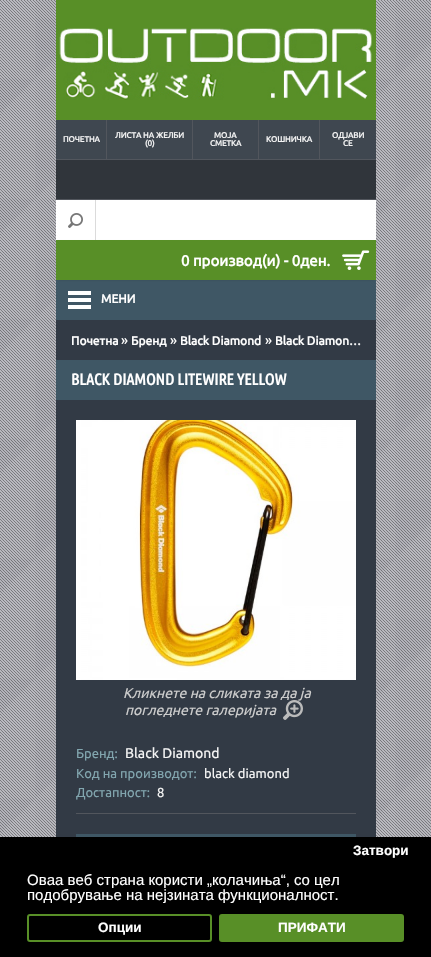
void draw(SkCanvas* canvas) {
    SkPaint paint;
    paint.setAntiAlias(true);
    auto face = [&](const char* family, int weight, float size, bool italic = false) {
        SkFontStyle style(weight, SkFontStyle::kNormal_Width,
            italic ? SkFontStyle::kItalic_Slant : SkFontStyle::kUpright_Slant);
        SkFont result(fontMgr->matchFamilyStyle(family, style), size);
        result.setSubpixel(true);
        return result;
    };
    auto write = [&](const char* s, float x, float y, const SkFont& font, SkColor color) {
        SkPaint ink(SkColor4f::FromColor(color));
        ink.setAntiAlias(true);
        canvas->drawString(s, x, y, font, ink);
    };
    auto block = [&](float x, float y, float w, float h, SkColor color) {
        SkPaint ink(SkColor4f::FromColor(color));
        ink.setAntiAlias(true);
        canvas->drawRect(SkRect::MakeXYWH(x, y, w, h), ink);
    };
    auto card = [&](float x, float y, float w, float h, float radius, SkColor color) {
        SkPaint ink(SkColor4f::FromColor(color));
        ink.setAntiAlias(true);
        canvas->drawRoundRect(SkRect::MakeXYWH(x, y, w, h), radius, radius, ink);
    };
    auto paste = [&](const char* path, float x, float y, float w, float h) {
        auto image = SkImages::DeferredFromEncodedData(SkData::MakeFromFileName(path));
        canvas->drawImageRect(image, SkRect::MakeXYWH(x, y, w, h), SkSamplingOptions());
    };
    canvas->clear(SK_ColorWHITE);
    paste("pic1.png", 0, 0, 431, 837);
    paste("pic2.png", 0, 0, 431, 837);
    block(56, 0, 320, 120, SkColorSetRGB(88, 143, 39));
    paste("pic3.png", 57, 28, 315, 72);
    block(56, 159, 320, 1, SkColorSetRGB(82, 86, 93));
    block(56, 120, 50, 39, SkColorSetRGB(63, 71, 80));
    auto kFont1 = face("Ubuntu", 700, 8);
    write("ПОЧЕТНА", 63, 142, kFont1, SkColorSetRGB(244, 244, 244));
    block(107, 120, 85, 39, SkColorSetRGB(63, 71, 80));
    block(106, 120, 1, 39, SkColorSetRGB(82, 86, 93));
    write("ЛИСТА НА ЖЕЛБИ", 115, 138, kFont1, SkColorSetRGB(244, 244, 244));
    write("(0)", 145, 146, kFont1, SkColorSetRGB(244, 244, 244));
    block(193, 120, 65, 39, SkColorSetRGB(63, 71, 80));
    block(192, 120, 1, 39, SkColorSetRGB(82, 86, 93));
    write("МОЈА", 214, 138, kFont1, SkColorSetRGB(244, 244, 244));
    write("СМЕТКА", 210, 146, kFont1, SkColorSetRGB(244, 244, 244));
    block(259, 120, 60, 39, SkColorSetRGB(63, 71, 80));
    block(258, 120, 1, 39, SkColorSetRGB(82, 86, 93));
    write("КОШНИЧКА", 266, 142, kFont1, SkColorSetRGB(244, 244, 244));
    block(320, 120, 56, 39, SkColorSetRGB(63, 71, 80));
    block(319, 120, 1, 39, SkColorSetRGB(82, 86, 93));
    write("ОДЈАВИ", 332, 138, kFont1, SkColorSetRGB(244, 244, 244));
    write("СЕ", 343, 146, kFont1, SkColorSetRGB(244, 244, 244));
    block(56, 160, 320, 39, SkColorSetRGB(48, 53, 59));
    block(56, 199, 320, 1, SkColorSetRGB(82, 86, 93));
    block(56, 200, 320, 40, SK_ColorWHITE);
    paste("pic4.png", 68, 213, 15, 15);
    block(95, 200, 1, 40, SkColorSetRGB(219, 219, 219));
    block(56, 280, 320, 40, SkColorSetRGB(63, 87, 101));
    paint.setColor(SkColorSetARGB(77, 0, 0, 0));
    paint.setMaskFilter(SkMaskFilter::MakeBlur(kNormal_SkBlurStyle, 1.5f));
    canvas->drawRect(SkRect::MakeXYWH(58, 243, 316, 36), paint);
    paint.setMaskFilter(nullptr);
    block(56, 240, 320, 40, SkColorSetRGB(88, 143, 39));
    auto kFont2 = face("Ubuntu", 700, 15);
    write("0 производ(и) - 0ден.", 181, 266, kFont2, SK_ColorWHITE);
    paste("pic5.png", 342, 250, 28, 20);
    block(68, 291, 23, 4, SK_ColorWHITE);
    block(68, 298, 23, 4, SK_ColorWHITE);
    block(68, 305, 23, 4, SK_ColorWHITE);
    auto kFont3 = face("Ubuntu", 700, 12);
    write("МЕНИ", 101, 303, kFont3, SK_ColorWHITE);
    block(56, 320, 320, 40, SkColorSetRGB(50, 58, 69));
    write("Почетна", 71, 345, kFont3, SK_ColorWHITE);
    auto kFont4 = face("Ubuntu", 400, 14);
    write("»", 121, 345, kFont4, SK_ColorWHITE);
    write("Бренд", 131, 345, kFont3, SK_ColorWHITE);
    write("»", 170, 345, kFont4, SK_ColorWHITE);
    write("Black Diamond", 180, 345, kFont3, SK_ColorWHITE);
    write("»", 265, 345, kFont4, SK_ColorWHITE);
    write("Black Diamon…", 275, 345, kFont3, SK_ColorWHITE);
    block(56, 400, 320, 437, SkColorSetRGB(50, 58, 69));
    block(56, 360, 320, 40, SkColorSetRGB(63, 87, 101));
    auto kFont5 = face("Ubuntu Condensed", 700, 16);
    write("BLACK DIAMOND LITEWIRE YELLOW", 71, 385, kFont5, SK_ColorWHITE);
    paste("pic6.png", 76, 420, 280, 260);
    auto kFont6 = face("Ubuntu", 400, 14, true);
    write("Кликнете на сликата за да ја", 123, 698, kFont6, SkColorSetRGB(204, 204, 204));
    write("погледнете галеријата", 125, 715, kFont6, SkColorSetRGB(204, 204, 204));
    paste("pic7.png", 283, 700, 20, 20);
    block(76, 813, 280, 1, SkColorSetRGB(82, 86, 93));
    auto kFont7 = face("Ubuntu", 400, 13);
    write("Бренд:", 76, 758, kFont7, SkColorSetRGB(130, 166, 175));
    write("Black Diamond", 125, 758, kFont4, SkColorSetRGB(244, 244, 244));
    write("Код на производот:", 76, 778, kFont7, SkColorSetRGB(130, 166, 175));
    write("black diamond", 204, 778, kFont7, SkColorSetRGB(244, 244, 244));
    canvas->save();
    canvas->clipRect(SkRect::MakeXYWH(76, 420, 280, 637));
    write("Достапност:", 76, 797, kFont7, SkColorSetRGB(130, 166, 175));
    canvas->restore();
    write("8", 157, 797, kFont7, SkColorSetRGB(244, 244, 244));
    block(76, 834, 280, 3, SkColorSetRGB(63, 87, 101));
    block(0, 837, 431, 120, SK_ColorBLACK);
    auto kFont8 = face("Liberation Sans", 700, 13.5f);
    write("Затвори", 353, 855, kFont8, SK_ColorWHITE);
    paint.setStyle(SkPaint::kStroke_Style);
    paint.setStrokeWidth(2);
    paint.setColor(SkColorSetRGB(88, 143, 39));
    canvas->drawRoundRect(SkRect::MakeXYWH(28, 915, 183, 26), 2, 2, paint);
    write("Опции", 98, 932, kFont8, SK_ColorWHITE);
    card(219, 914, 185, 28, 3, SkColorSetRGB(88, 143, 39));
    write("ПРИФАТИ", 278, 932, kFont8, SK_ColorWHITE);
    auto kFont9 = face("Liberation Sans", 400, 15);
    write("Оваа веб страна користи „колачиња“, со цел", 27, 885, kFont9, SK_ColorWHITE);
    write("подобрување на нејзината функционалност.", 27, 900, kFont9, SK_ColorWHITE);
}
